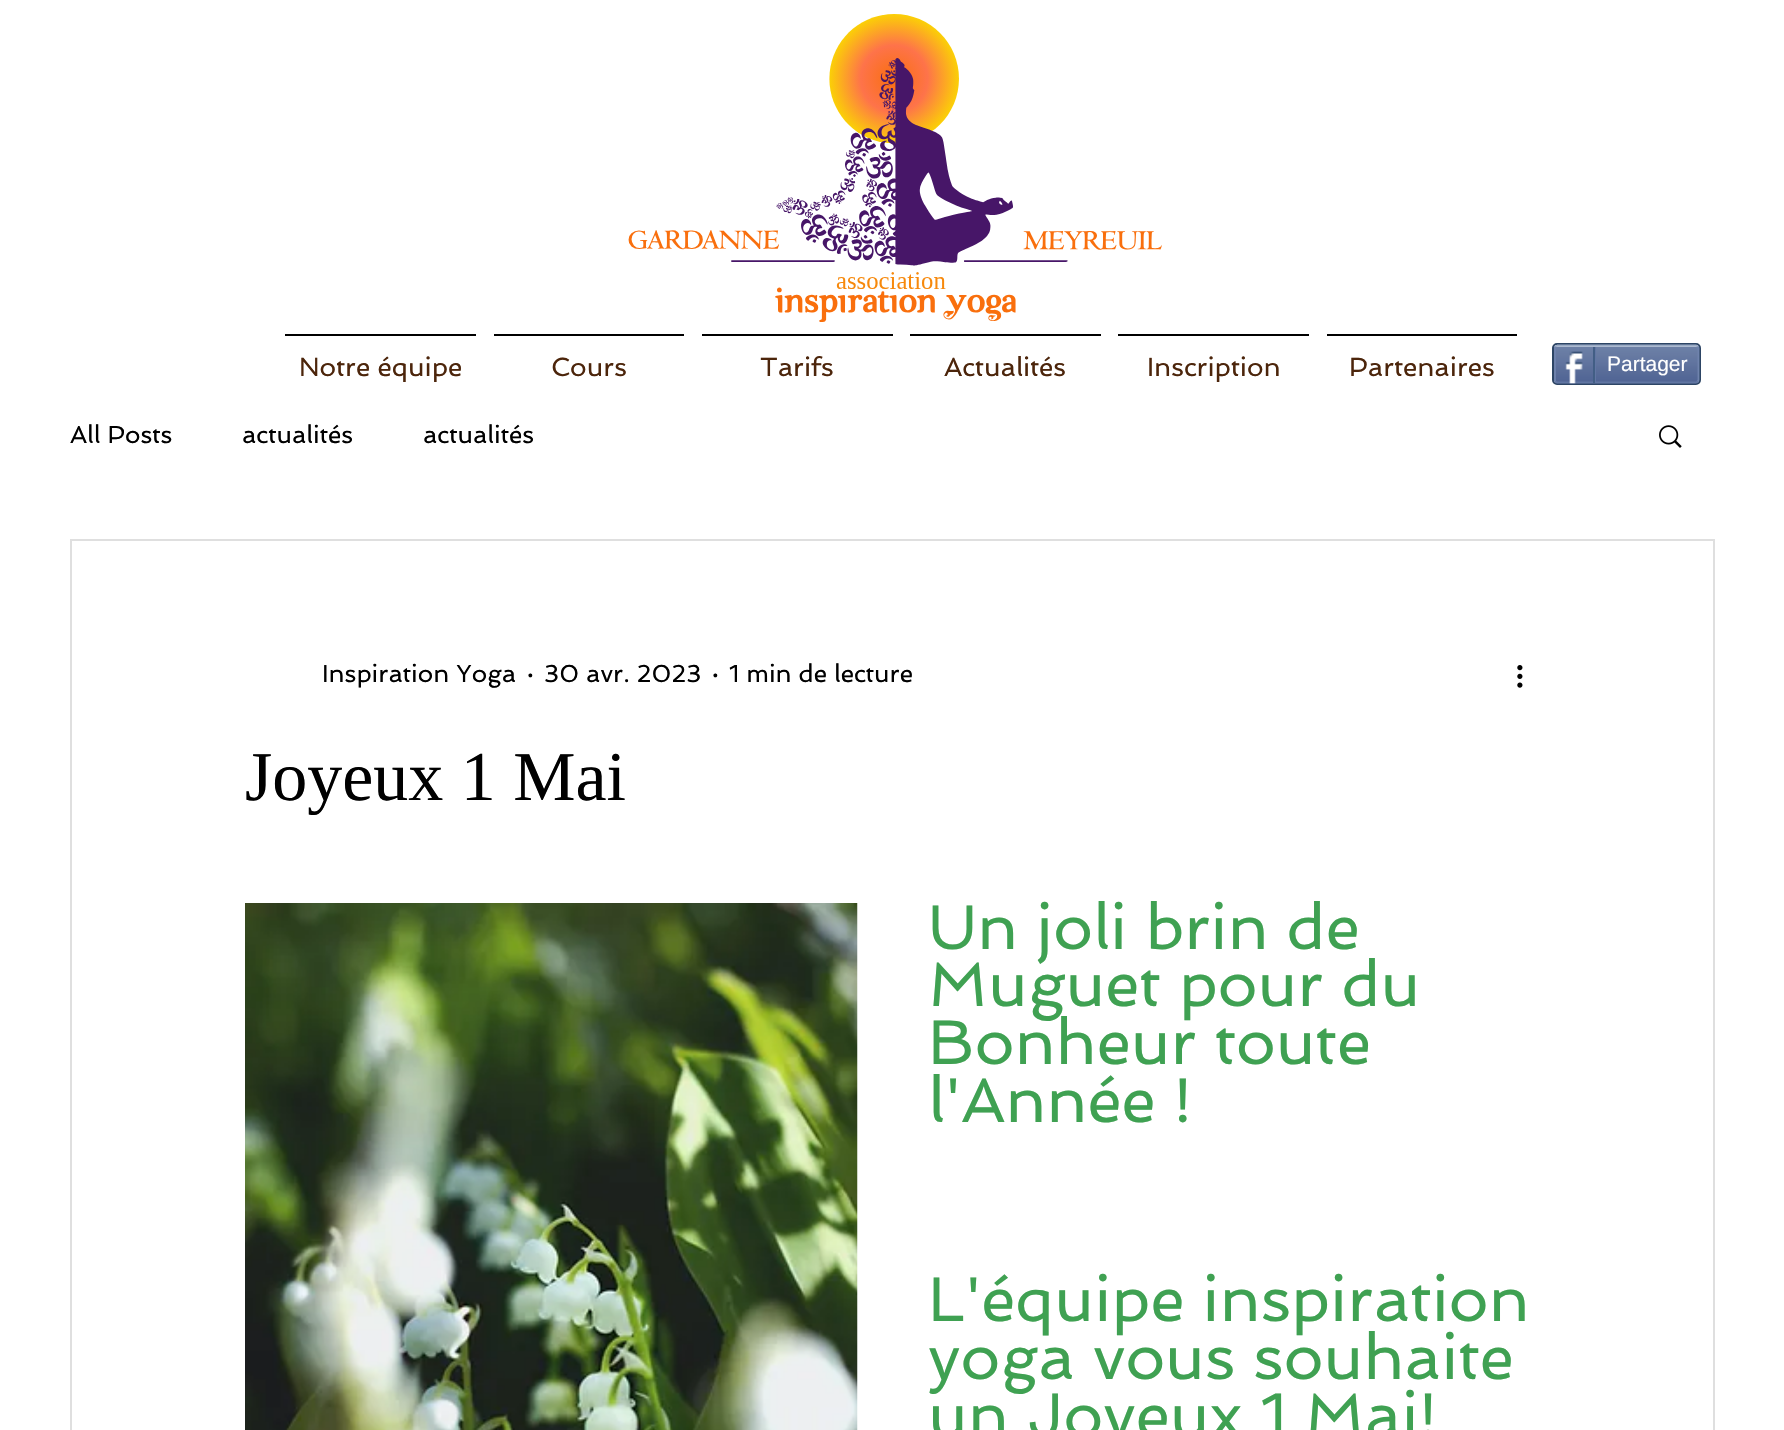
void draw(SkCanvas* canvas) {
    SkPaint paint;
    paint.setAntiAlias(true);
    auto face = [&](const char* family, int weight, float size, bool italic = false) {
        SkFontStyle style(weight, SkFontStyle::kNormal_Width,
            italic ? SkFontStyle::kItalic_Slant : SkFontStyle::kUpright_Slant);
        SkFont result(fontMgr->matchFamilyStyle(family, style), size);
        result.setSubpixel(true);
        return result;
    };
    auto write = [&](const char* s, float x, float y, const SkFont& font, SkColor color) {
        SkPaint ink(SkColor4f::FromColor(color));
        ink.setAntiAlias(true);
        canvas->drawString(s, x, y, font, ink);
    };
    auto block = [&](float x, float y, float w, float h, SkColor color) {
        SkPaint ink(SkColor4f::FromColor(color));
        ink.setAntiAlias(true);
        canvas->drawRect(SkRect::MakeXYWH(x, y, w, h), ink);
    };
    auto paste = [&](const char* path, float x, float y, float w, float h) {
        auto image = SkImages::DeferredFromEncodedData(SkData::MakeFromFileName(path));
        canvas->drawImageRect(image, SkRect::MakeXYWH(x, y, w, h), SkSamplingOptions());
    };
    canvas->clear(SK_ColorWHITE);
    paste("pic1.png", 628, 14, 534, 308);
    block(285, 334, 191, 2, SK_ColorBLACK);
    auto kFont1 = face("Spinnaker", 400, 26.25f);
    write("Notre équipe", 299, 376, kFont1, SkColorSetRGB(76, 37, 11));
    block(494, 334, 190, 2, SK_ColorBLACK);
    write("Cours", 551, 376, kFont1, SkColorSetRGB(76, 37, 11));
    block(702, 334, 191, 2, SK_ColorBLACK);
    write("Tarifs", 760, 376, kFont1, SkColorSetRGB(76, 37, 11));
    block(910, 334, 191, 2, SK_ColorBLACK);
    write("Actualités", 944, 376, kFont1, SkColorSetRGB(76, 37, 11));
    block(1118, 334, 191, 2, SK_ColorBLACK);
    write("Inscription", 1147, 376, kFont1, SkColorSetRGB(76, 37, 11));
    block(1327, 334, 190, 2, SK_ColorBLACK);
    write("Partenaires", 1349, 376, kFont1, SkColorSetRGB(76, 37, 11));
    paint.setStyle(SkPaint::kStroke_Style);
    paint.setStrokeWidth(2);
    paint.setColor(SkColorSetRGB(45, 69, 101));
    canvas->drawRoundRect(SkRect::MakeXYWH(1553, 344, 147, 40), 4, 4, paint);
    paste("pic2.png", 1554, 345, 146, 39);
    paint.setStrokeWidth(1.8f);
    paint.setColor(SkColorSetRGB(154, 171, 198));
    canvas->drawPath(SkPathBuilder().moveTo(1555.5f, 346.5f).lineTo(1557.5f, 345.5f).lineTo(1696, 345.5f).lineTo(1697.5f, 346.5f).detach(), paint);
    paint.setColor(SkColorSetRGB(111, 131, 173));
    canvas->drawPath(SkPathBuilder().moveTo(1697.5f, 346.5f).cubicTo(1698, 347, 1698.5f, 347.5f, 1698.5f, 348).lineTo(1698.5f, 380).cubicTo(1698.5f, 380.5f, 1698, 381, 1697.5f, 381.5f).detach(), paint);
    paint.setColor(SkColorSetRGB(97, 118, 163));
    canvas->drawPath(SkPathBuilder().moveTo(1697.5f, 381.5f).lineTo(1696, 382.5f).lineTo(1557, 382.5f).lineTo(1555.5f, 381.5f).detach(), paint);
    paint.setColor(SkColorSetRGB(111, 131, 173));
    canvas->drawPath(SkPathBuilder().moveTo(1555.5f, 381.5f).cubicTo(1555, 381, 1555, 380.5f, 1555, 380).lineTo(1555, 348).cubicTo(1555, 347.5f, 1555, 347, 1555.5f, 346.5f).detach(), paint);
    paste("pic3.png", 1565, 351, 18, 33);
    block(1593, 347, 2, 36, SkColorSetRGB(66, 94, 133));
    auto kFont2 = face("Liberation Sans", 400, 21);
    write("Partager", 1607, 371, kFont2, SK_ColorWHITE);
    block(1595, 347, 1, 35, SkColorSetRGB(97, 118, 163));
    auto kFont3 = face("Spinnaker", 400, 24.5f);
    write("All Posts", 70, 443, kFont3, SK_ColorBLACK);
    write("actualités", 242, 443, kFont3, SK_ColorBLACK);
    write("actualités", 423, 443, kFont3, SK_ColorBLACK);
    paste("pic4.png", 1659, 425, 23, 23);
    paint.setStrokeWidth(2);
    paint.setColor(SkColorSetRGB(223, 223, 223));
    canvas->drawRect(SkRect::MakeXYWH(71, 540, 1643, 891), paint);
    write("Inspiration Yoga", 322, 682, kFont3, SK_ColorBLACK);
    write("·", 527, 682, kFont3, SK_ColorBLACK);
    write("30 avr. 2023", 544, 682, kFont3, SK_ColorBLACK);
    write("·", 712, 682, kFont3, SK_ColorBLACK);
    write("1 min de lecture", 729, 682, kFont3, SK_ColorBLACK);
    paste("pic5.png", 1517, 665, 6, 23);
    auto kFont4 = face("Liberation Serif", 400, 70);
    write("Joyeux 1 Mai", 245, 800, kFont4, SK_ColorBLACK);
    paste("pic6.png", 245, 903, 613, 527);
    auto kFont5 = face("Spinnaker", 400, 63);
    write("Un joli brin de", 928, 949, kFont5, SkColorSetRGB(63, 161, 82));
    write("Muguet pour du", 928, 1006, kFont5, SkColorSetRGB(63, 161, 82));
    write("Bonheur toute", 928, 1064, kFont5, SkColorSetRGB(63, 161, 82));
    write("l'Année !", 928, 1122, kFont5, SkColorSetRGB(63, 161, 82));
    write("L'équipe inspiration", 928, 1321, kFont5, SkColorSetRGB(63, 161, 82));
    write("yoga vous souhaite", 928, 1379, kFont5, SkColorSetRGB(63, 161, 82));
    write("un Joyeux 1 Mai!", 928, 1437, kFont5, SkColorSetRGB(63, 161, 82));
}
